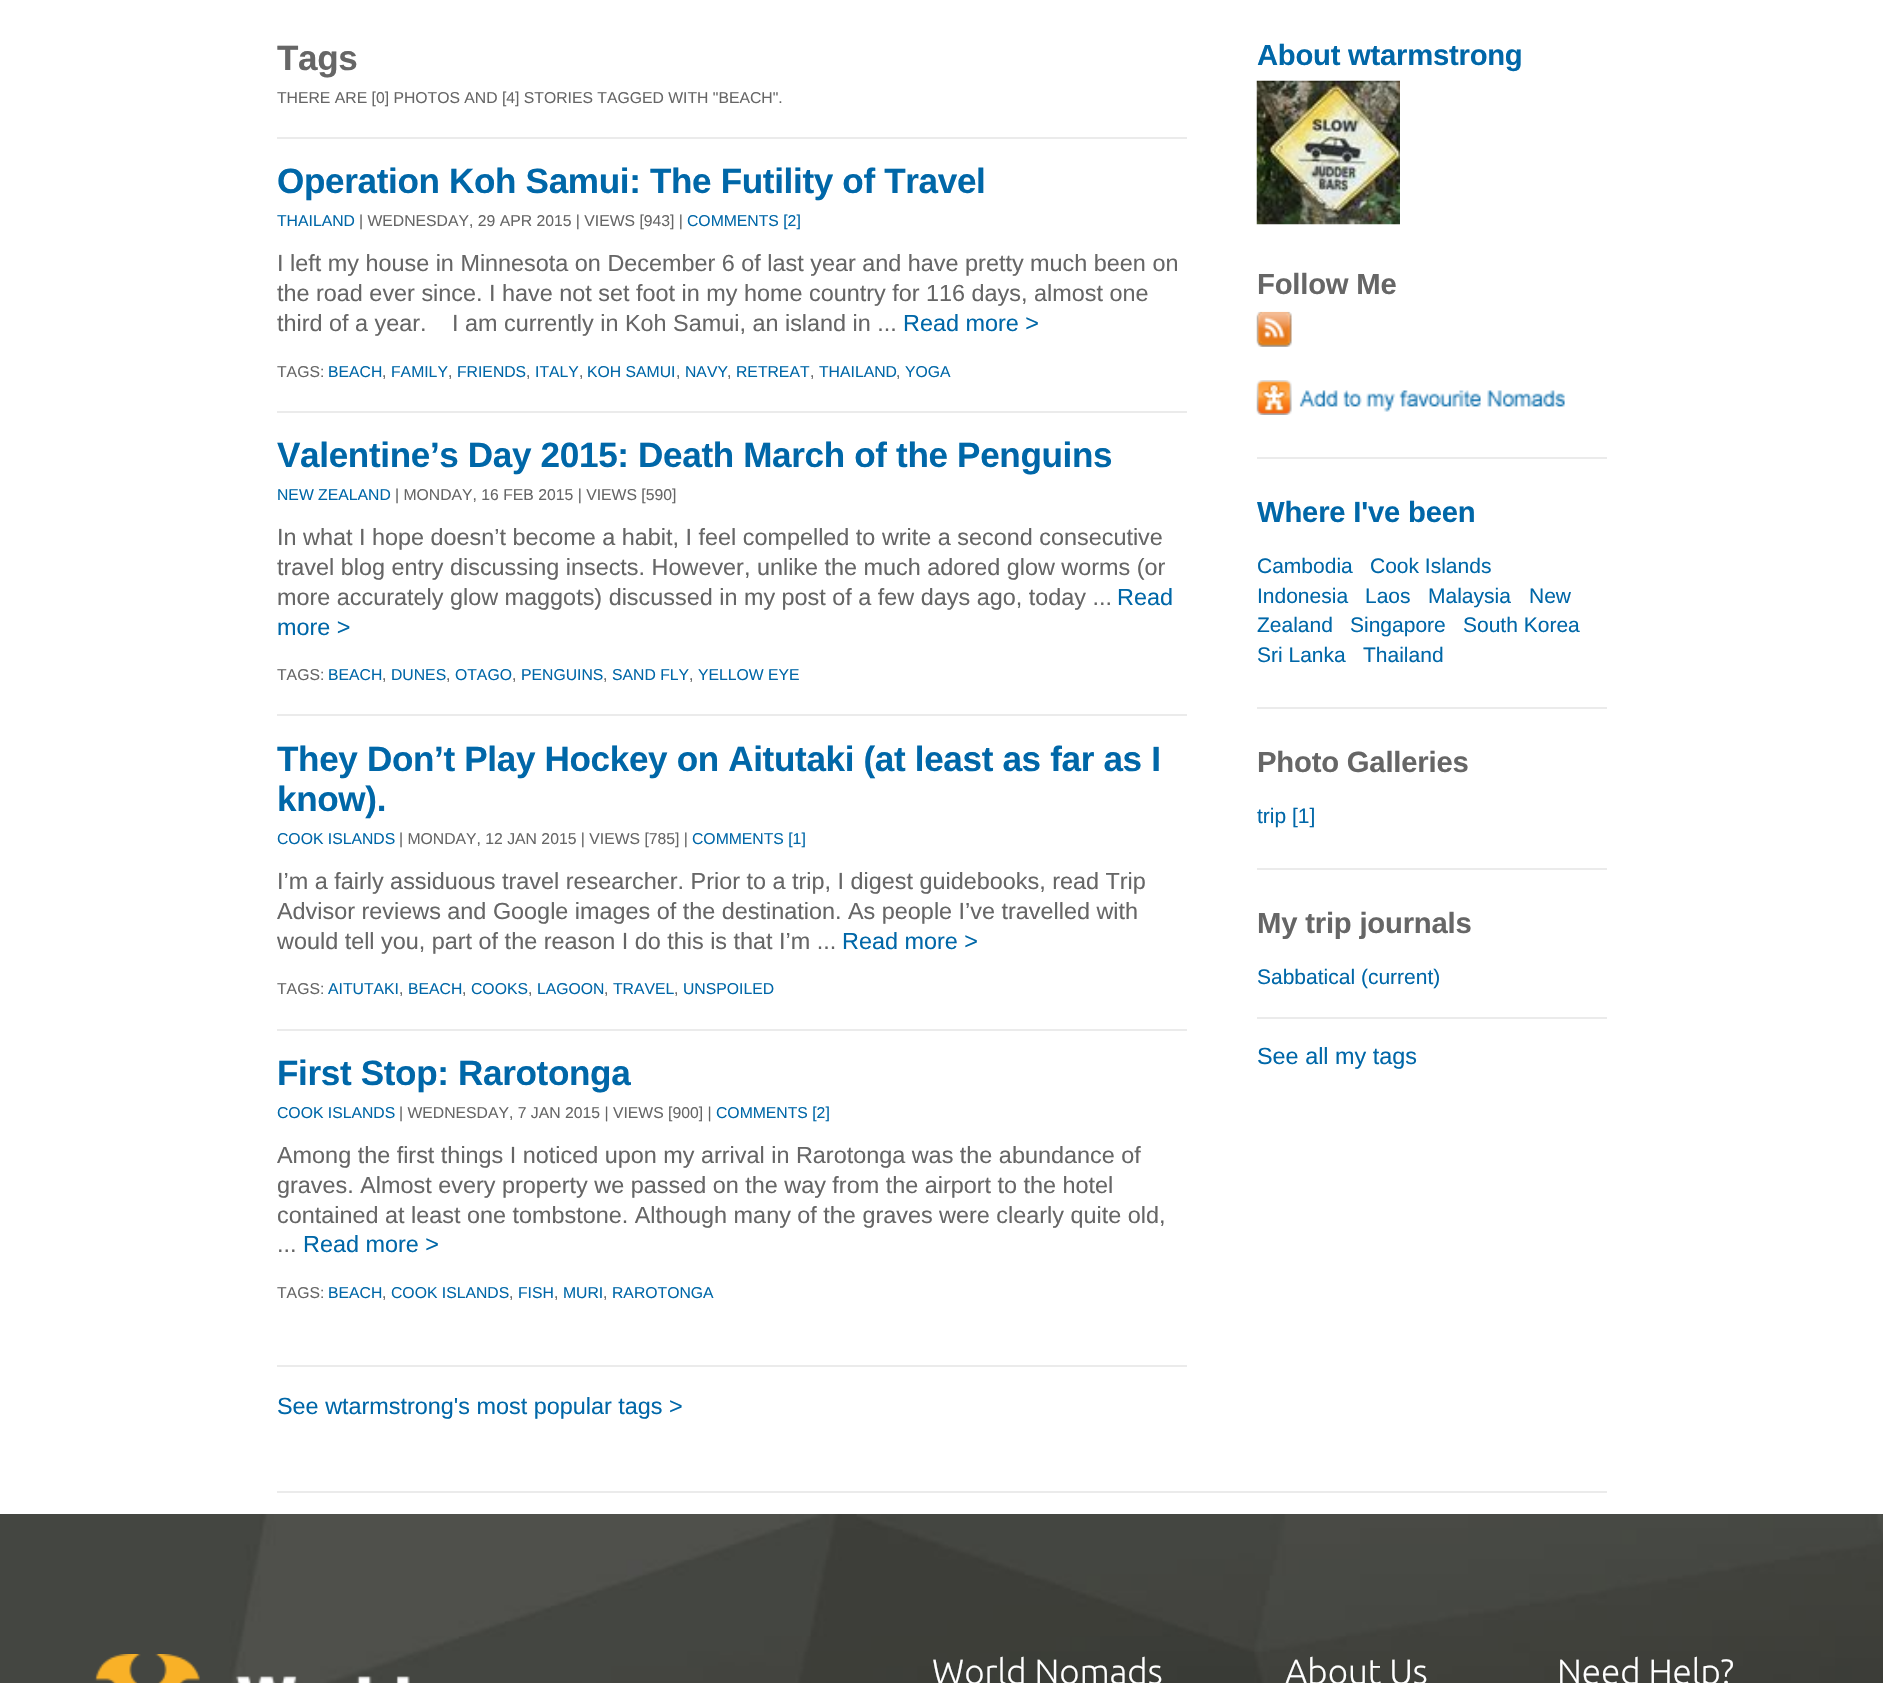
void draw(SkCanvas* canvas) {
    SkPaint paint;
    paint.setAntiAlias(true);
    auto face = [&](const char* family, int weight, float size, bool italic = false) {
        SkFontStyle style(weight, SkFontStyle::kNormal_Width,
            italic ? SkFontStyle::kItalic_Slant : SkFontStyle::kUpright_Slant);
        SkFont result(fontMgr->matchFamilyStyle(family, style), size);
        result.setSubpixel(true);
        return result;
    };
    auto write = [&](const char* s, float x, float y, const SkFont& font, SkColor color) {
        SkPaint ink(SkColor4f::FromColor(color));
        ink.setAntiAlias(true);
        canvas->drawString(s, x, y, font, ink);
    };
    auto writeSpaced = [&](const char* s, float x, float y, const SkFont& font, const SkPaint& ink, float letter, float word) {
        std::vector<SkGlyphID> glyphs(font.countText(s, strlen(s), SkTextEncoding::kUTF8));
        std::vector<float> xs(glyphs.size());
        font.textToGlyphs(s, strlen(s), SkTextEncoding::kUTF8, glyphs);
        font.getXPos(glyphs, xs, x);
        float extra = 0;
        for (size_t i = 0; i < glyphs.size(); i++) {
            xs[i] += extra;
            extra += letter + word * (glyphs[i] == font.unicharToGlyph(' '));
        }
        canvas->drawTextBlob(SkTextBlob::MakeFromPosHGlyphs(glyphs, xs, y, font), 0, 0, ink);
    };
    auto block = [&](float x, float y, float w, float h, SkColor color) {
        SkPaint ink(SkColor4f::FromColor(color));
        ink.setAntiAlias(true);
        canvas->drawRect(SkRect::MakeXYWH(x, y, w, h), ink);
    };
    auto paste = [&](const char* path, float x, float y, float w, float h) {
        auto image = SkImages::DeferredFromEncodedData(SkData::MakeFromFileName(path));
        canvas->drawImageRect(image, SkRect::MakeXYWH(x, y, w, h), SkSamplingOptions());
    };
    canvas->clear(SK_ColorWHITE);
    block(277, 1491, 1330, 2, SkColorSetRGB(235, 235, 235));
    canvas->save();
    canvas->clipRect(SkRect::MakeXYWH(277, 39, 980, 1405));
    auto kFont1 = face("Liberation Sans", 700, 35.1f);
    paint.setColor(SkColorSetRGB(102, 102, 102));
    writeSpaced("Tags", 277, 70, kFont1, paint, -0.35f, 0);
    canvas->restore();
    auto kFont2 = face("Liberation Sans", 400, 15.75f);
    write("THERE ARE [0] PHOTOS AND [4] STORIES TAGGED WITH \"BEACH\".", 277, 103, kFont2, SkColorSetRGB(102, 102, 102));
    block(277, 137, 910, 2, SkColorSetRGB(235, 235, 235));
    paint.setColor(SkColorSetRGB(0, 103, 168));
    writeSpaced("Operation Koh Samui: The Futility of Travel", 277, 193, kFont1, paint, -0.35f, 0);
    write("THAILAND", 277, 226, kFont2, SkColorSetRGB(0, 103, 168));
    write("| WEDNESDAY, 29 APR 2015 | VIEWS [943] |", 359, 226, kFont2, SkColorSetRGB(102, 102, 102));
    write("COMMENTS [2]", 687, 226, kFont2, SkColorSetRGB(0, 103, 168));
    auto kFont3 = face("Liberation Sans", 400, 23.4f);
    write("I left my house in Minnesota on December 6 of last year and have pretty much been on", 277, 271, kFont3, SkColorSetRGB(102, 102, 102));
    write("the road ever since. I have not set foot in my home country for 116 days, almost one", 277, 301, kFont3, SkColorSetRGB(102, 102, 102));
    write("third of a year.", 277, 331, kFont3, SkColorSetRGB(102, 102, 102));
    write("I am currently in Koh Samui, an island in ...", 452, 331, kFont3, SkColorSetRGB(102, 102, 102));
    write("Read more >", 903, 331, kFont3, SkColorSetRGB(0, 103, 168));
    write("TAGS:", 277, 377, kFont2, SkColorSetRGB(102, 102, 102));
    write("BEACH", 328, 377, kFont2, SkColorSetRGB(0, 103, 168));
    write(",", 382, 377, kFont2, SkColorSetRGB(102, 102, 102));
    write("FAMILY", 391, 377, kFont2, SkColorSetRGB(0, 103, 168));
    write(",", 448, 377, kFont2, SkColorSetRGB(102, 102, 102));
    write("FRIENDS", 457, 377, kFont2, SkColorSetRGB(0, 103, 168));
    write(",", 526, 377, kFont2, SkColorSetRGB(102, 102, 102));
    write("ITALY", 535, 377, kFont2, SkColorSetRGB(0, 103, 168));
    write(",", 579, 377, kFont2, SkColorSetRGB(102, 102, 102));
    write("KOH SAMUI", 587, 377, kFont2, SkColorSetRGB(0, 103, 168));
    write(",", 676, 377, kFont2, SkColorSetRGB(102, 102, 102));
    write("NAVY", 685, 377, kFont2, SkColorSetRGB(0, 103, 168));
    write(",", 727, 377, kFont2, SkColorSetRGB(102, 102, 102));
    write("RETREAT", 736, 377, kFont2, SkColorSetRGB(0, 103, 168));
    write(",", 810, 377, kFont2, SkColorSetRGB(102, 102, 102));
    write("THAILAND", 819, 377, kFont2, SkColorSetRGB(0, 103, 168));
    write(",", 896, 377, kFont2, SkColorSetRGB(102, 102, 102));
    write("YOGA", 905, 377, kFont2, SkColorSetRGB(0, 103, 168));
    block(277, 411, 910, 2, SkColorSetRGB(235, 235, 235));
    writeSpaced("Valentine’s Day 2015: Death March of the Penguins", 277, 467, kFont1, paint, -0.35f, 0);
    write("NEW ZEALAND", 277, 500, kFont2, SkColorSetRGB(0, 103, 168));
    write("| MONDAY, 16 FEB 2015 | VIEWS [590]", 395, 500, kFont2, SkColorSetRGB(102, 102, 102));
    write("In what I hope doesn’t become a habit, I feel compelled to write a second consecutive", 277, 545, kFont3, SkColorSetRGB(102, 102, 102));
    write("travel blog entry discussing insects. However, unlike the much adored glow worms (or", 277, 575, kFont3, SkColorSetRGB(102, 102, 102));
    write("more accurately glow maggots) discussed in my post of a few days ago, today ...", 277, 605, kFont3, SkColorSetRGB(102, 102, 102));
    write("Read", 1117, 605, kFont3, SkColorSetRGB(0, 103, 168));
    write("more >", 277, 635, kFont3, SkColorSetRGB(0, 103, 168));
    write("TAGS:", 277, 680, kFont2, SkColorSetRGB(102, 102, 102));
    write("BEACH", 328, 680, kFont2, SkColorSetRGB(0, 103, 168));
    write(",", 382, 680, kFont2, SkColorSetRGB(102, 102, 102));
    write("DUNES", 391, 680, kFont2, SkColorSetRGB(0, 103, 168));
    write(",", 446, 680, kFont2, SkColorSetRGB(102, 102, 102));
    write("OTAGO", 455, 680, kFont2, SkColorSetRGB(0, 103, 168));
    write(",", 512, 680, kFont2, SkColorSetRGB(102, 102, 102));
    write("PENGUINS", 521, 680, kFont2, SkColorSetRGB(0, 103, 168));
    write(",", 603, 680, kFont2, SkColorSetRGB(102, 102, 102));
    write("SAND FLY", 612, 680, kFont2, SkColorSetRGB(0, 103, 168));
    write(",", 689, 680, kFont2, SkColorSetRGB(102, 102, 102));
    write("YELLOW EYE", 698, 680, kFont2, SkColorSetRGB(0, 103, 168));
    block(277, 714, 910, 2, SkColorSetRGB(235, 235, 235));
    canvas->save();
    canvas->clipRect(SkRect::MakeXYWH(277, 39, 980, 1405));
    writeSpaced("They Don’t Play Hockey on Aitutaki (at least as far as I", 277, 771, kFont1, paint, -0.35f, 0);
    canvas->restore();
    writeSpaced("know).", 277, 811, kFont1, paint, -0.35f, 0);
    write("COOK ISLANDS", 277, 844, kFont2, SkColorSetRGB(0, 103, 168));
    write("| MONDAY, 12 JAN 2015 | VIEWS [785] |", 399, 844, kFont2, SkColorSetRGB(102, 102, 102));
    write("COMMENTS [1]", 692, 844, kFont2, SkColorSetRGB(0, 103, 168));
    write("I’m a fairly assiduous travel researcher. Prior to a trip, I digest guidebooks, read Trip", 277, 889, kFont3, SkColorSetRGB(102, 102, 102));
    write("Advisor reviews and Google images of the destination. As people I’ve travelled with", 277, 919, kFont3, SkColorSetRGB(102, 102, 102));
    write("would tell you, part of the reason I do this is that I’m ...", 277, 949, kFont3, SkColorSetRGB(102, 102, 102));
    write("Read more >", 842, 949, kFont3, SkColorSetRGB(0, 103, 168));
    write("TAGS:", 277, 994, kFont2, SkColorSetRGB(102, 102, 102));
    write("AITUTAKI", 328, 994, kFont2, SkColorSetRGB(0, 103, 168));
    write(",", 399, 994, kFont2, SkColorSetRGB(102, 102, 102));
    write("BEACH", 408, 994, kFont2, SkColorSetRGB(0, 103, 168));
    write(",", 462, 994, kFont2, SkColorSetRGB(102, 102, 102));
    write("COOKS", 471, 994, kFont2, SkColorSetRGB(0, 103, 168));
    write(",", 528, 994, kFont2, SkColorSetRGB(102, 102, 102));
    write("LAGOON", 537, 994, kFont2, SkColorSetRGB(0, 103, 168));
    write(",", 604, 994, kFont2, SkColorSetRGB(102, 102, 102));
    write("TRAVEL", 613, 994, kFont2, SkColorSetRGB(0, 103, 168));
    write(",", 674, 994, kFont2, SkColorSetRGB(102, 102, 102));
    write("UNSPOILED", 683, 994, kFont2, SkColorSetRGB(0, 103, 168));
    block(277, 1029, 910, 2, SkColorSetRGB(235, 235, 235));
    writeSpaced("First Stop: Rarotonga", 277, 1085, kFont1, paint, -0.35f, 0);
    write("COOK ISLANDS", 277, 1118, kFont2, SkColorSetRGB(0, 103, 168));
    write("| WEDNESDAY, 7 JAN 2015 | VIEWS [900] |", 399, 1118, kFont2, SkColorSetRGB(102, 102, 102));
    write("COMMENTS [2]", 716, 1118, kFont2, SkColorSetRGB(0, 103, 168));
    write("Among the first things I noticed upon my arrival in Rarotonga was the abundance of", 277, 1163, kFont3, SkColorSetRGB(102, 102, 102));
    write("graves. Almost every property we passed on the way from the airport to the hotel", 277, 1193, kFont3, SkColorSetRGB(102, 102, 102));
    write("contained at least one tombstone. Although many of the graves were clearly quite old,", 277, 1223, kFont3, SkColorSetRGB(102, 102, 102));
    write("...", 277, 1252, kFont3, SkColorSetRGB(102, 102, 102));
    write("Read more >", 303, 1252, kFont3, SkColorSetRGB(0, 103, 168));
    write("TAGS:", 277, 1298, kFont2, SkColorSetRGB(102, 102, 102));
    write("BEACH", 328, 1298, kFont2, SkColorSetRGB(0, 103, 168));
    write(",", 382, 1298, kFont2, SkColorSetRGB(102, 102, 102));
    write("COOK ISLANDS", 391, 1298, kFont2, SkColorSetRGB(0, 103, 168));
    write(",", 509, 1298, kFont2, SkColorSetRGB(102, 102, 102));
    write("FISH", 518, 1298, kFont2, SkColorSetRGB(0, 103, 168));
    write(",", 554, 1298, kFont2, SkColorSetRGB(102, 102, 102));
    write("MURI", 563, 1298, kFont2, SkColorSetRGB(0, 103, 168));
    write(",", 603, 1298, kFont2, SkColorSetRGB(102, 102, 102));
    write("RAROTONGA", 612, 1298, kFont2, SkColorSetRGB(0, 103, 168));
    block(277, 1365, 910, 2, SkColorSetRGB(235, 235, 235));
    write("See wtarmstrong's most popular tags >", 277, 1414, kFont3, SkColorSetRGB(0, 103, 168));
    auto kFont4 = face("Liberation Sans", 700, 29.25f);
    writeSpaced("About wtarmstrong", 1257, 65, kFont4, paint, -0.25f, 0);
    paste("pic1.png", 1256, 80, 144, 145);
    paint.setColor(SkColorSetRGB(102, 102, 102));
    writeSpaced("Follow Me", 1257, 294, kFont4, paint, -0.2f, 0);
    paste("pic2.png", 1256, 311, 36, 36);
    paste("pic3.png", 1256, 380, 309, 35);
    block(1257, 457, 350, 2, SkColorSetRGB(235, 235, 235));
    canvas->save();
    canvas->clipRect(SkRect::MakeXYWH(1257, 39, 350, 1032));
    paint.setColor(SkColorSetRGB(0, 103, 168));
    writeSpaced("Where I've been", 1257, 522, kFont4, paint, -0.2f, 0);
    canvas->restore();
    auto kFont5 = face("Liberation Sans", 400, 21);
    write("Cambodia", 1257, 573, kFont5, SkColorSetRGB(0, 103, 168));
    write("Cook Islands", 1370, 573, kFont5, SkColorSetRGB(0, 103, 168));
    write("Indonesia", 1257, 603, kFont5, SkColorSetRGB(0, 103, 168));
    write("Laos", 1365, 603, kFont5, SkColorSetRGB(0, 103, 168));
    write("Malaysia", 1428, 603, kFont5, SkColorSetRGB(0, 103, 168));
    write("New", 1529, 603, kFont5, SkColorSetRGB(0, 103, 168));
    write("Zealand", 1257, 632, kFont5, SkColorSetRGB(0, 103, 168));
    write("Singapore", 1350, 632, kFont5, SkColorSetRGB(0, 103, 168));
    write("South Korea", 1463, 632, kFont5, SkColorSetRGB(0, 103, 168));
    write("Sri Lanka", 1257, 662, kFont5, SkColorSetRGB(0, 103, 168));
    write("Thailand", 1363, 662, kFont5, SkColorSetRGB(0, 103, 168));
    block(1257, 707, 350, 2, SkColorSetRGB(235, 235, 235));
    paint.setColor(SkColorSetRGB(102, 102, 102));
    writeSpaced("Photo Galleries", 1257, 772, kFont4, paint, -0.2f, 0);
    write("trip [1]", 1257, 823, kFont5, SkColorSetRGB(0, 103, 168));
    block(1257, 868, 350, 2, SkColorSetRGB(235, 235, 235));
    writeSpaced("My trip journals", 1257, 933, kFont4, paint, -0.2f, 0);
    write("Sabbatical (current)", 1257, 984, kFont5, SkColorSetRGB(0, 103, 168));
    block(1257, 1017, 350, 2, SkColorSetRGB(235, 235, 235));
    write("See all my tags", 1257, 1064, kFont3, SkColorSetRGB(0, 103, 168));
    paste("pic4.png", 0, 1514, 1883, 169);
    paste("pic5.png", 94, 1654, 316, 29);
    auto kFont6 = face("Ubuntu", 300, 35);
    write("World Nomads", 932, 1684, kFont6, SK_ColorWHITE);
    write("About Us", 1285, 1684, kFont6, SK_ColorWHITE);
    write("Need Help?", 1557, 1684, kFont6, SK_ColorWHITE);
}
